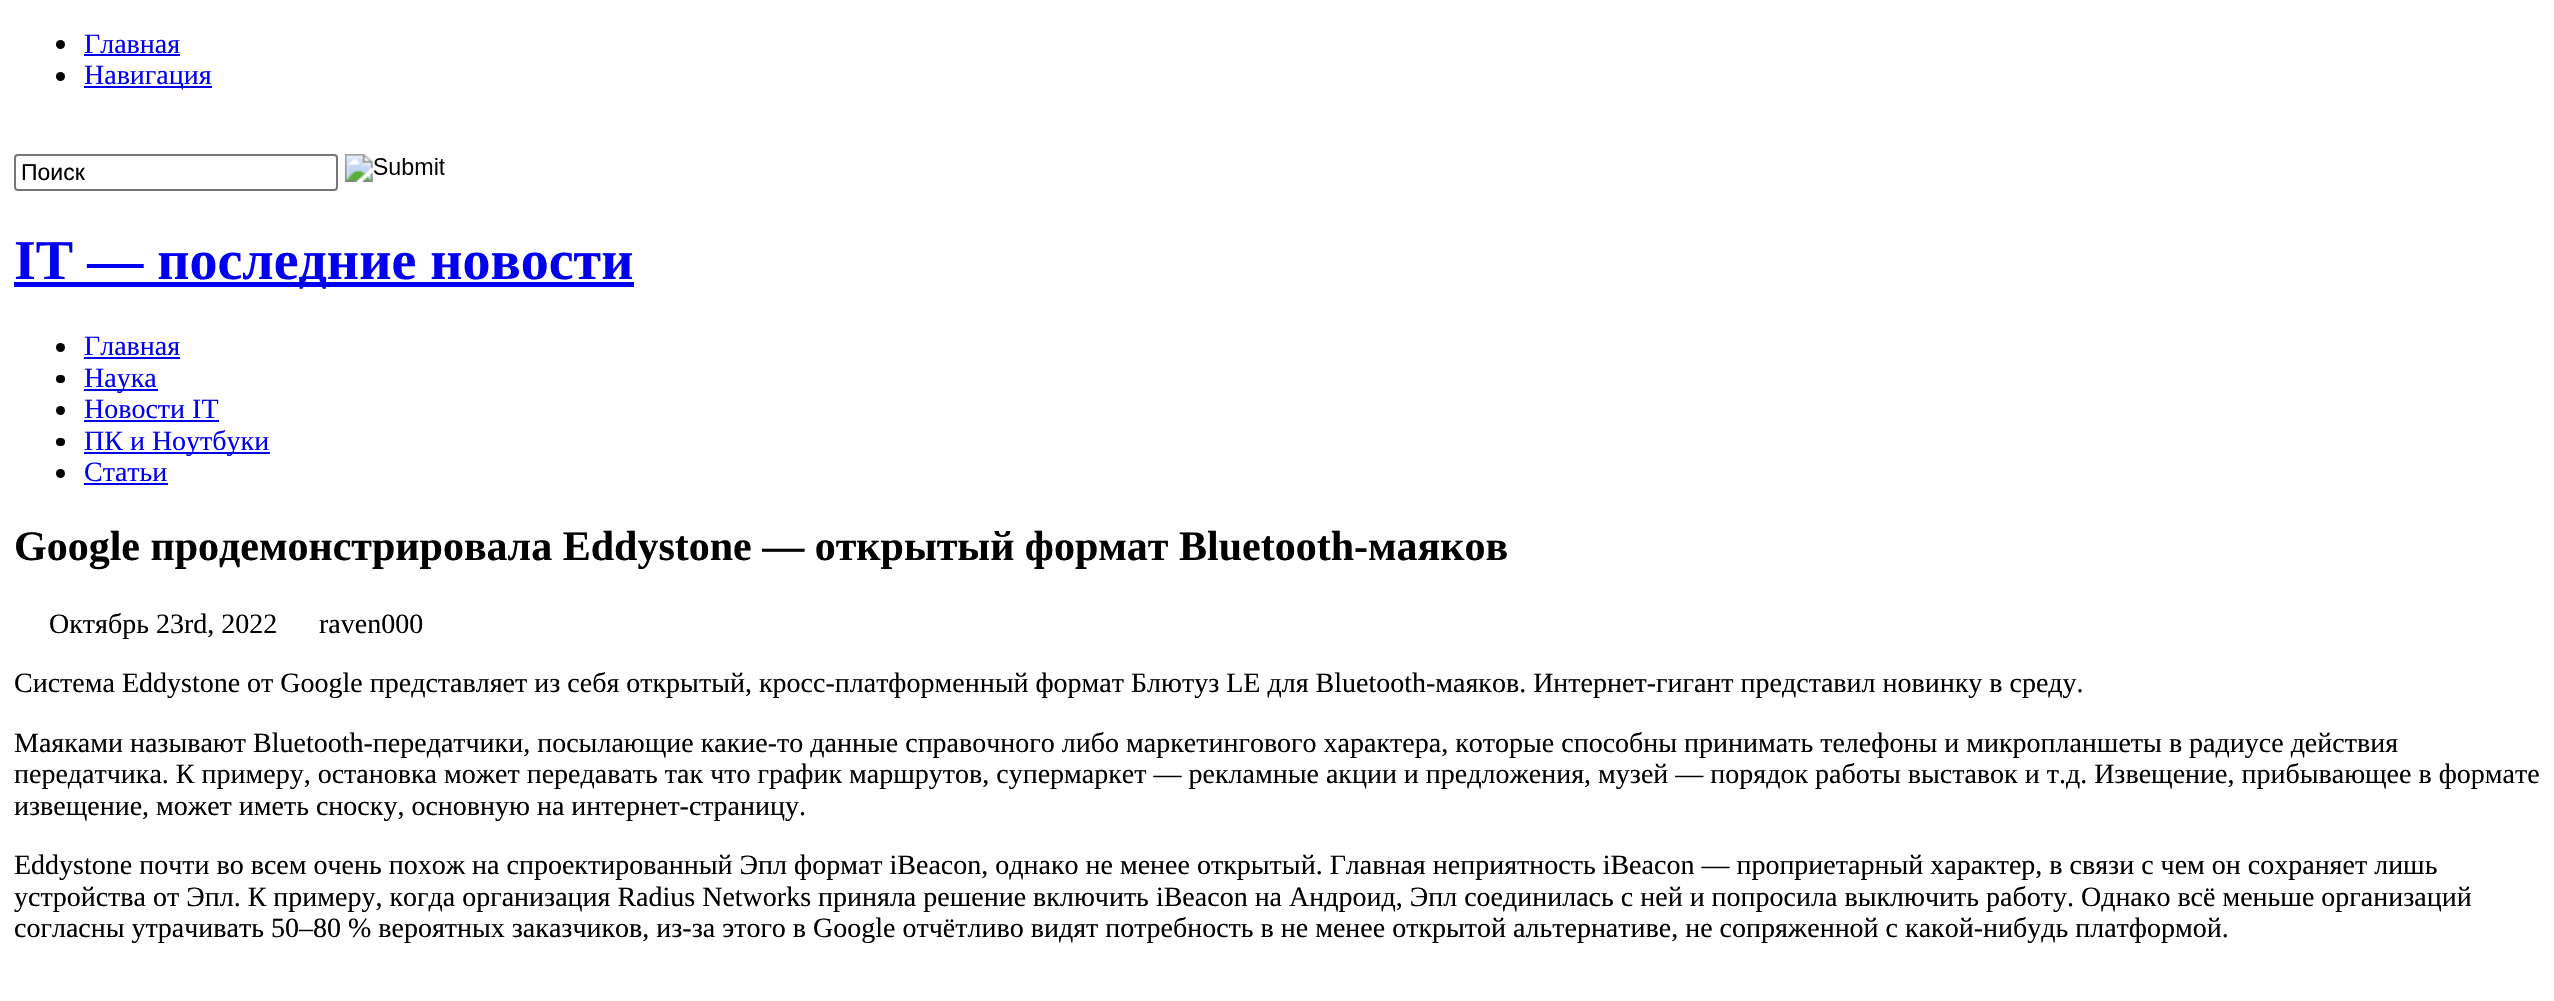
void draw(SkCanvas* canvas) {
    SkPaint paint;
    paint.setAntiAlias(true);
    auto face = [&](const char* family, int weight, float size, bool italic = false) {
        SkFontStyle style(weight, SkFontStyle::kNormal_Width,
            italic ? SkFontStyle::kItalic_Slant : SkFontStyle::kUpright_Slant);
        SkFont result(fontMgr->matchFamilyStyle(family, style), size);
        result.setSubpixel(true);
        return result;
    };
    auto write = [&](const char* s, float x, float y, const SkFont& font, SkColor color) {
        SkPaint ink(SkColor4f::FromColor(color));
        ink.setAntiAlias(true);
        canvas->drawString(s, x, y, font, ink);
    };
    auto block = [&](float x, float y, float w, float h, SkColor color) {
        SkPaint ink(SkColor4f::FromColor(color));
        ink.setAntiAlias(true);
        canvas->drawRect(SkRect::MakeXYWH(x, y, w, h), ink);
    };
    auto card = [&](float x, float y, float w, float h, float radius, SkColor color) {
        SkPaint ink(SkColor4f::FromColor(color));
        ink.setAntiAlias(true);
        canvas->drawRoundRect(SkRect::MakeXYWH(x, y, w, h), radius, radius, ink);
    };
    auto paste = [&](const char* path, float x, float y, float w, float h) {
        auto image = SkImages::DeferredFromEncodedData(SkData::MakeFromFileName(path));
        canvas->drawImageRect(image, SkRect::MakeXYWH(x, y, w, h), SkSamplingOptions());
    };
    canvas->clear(SK_ColorWHITE);
    paint.setColor(SK_ColorBLACK);
    canvas->drawCircle(60.5f, 44.5f, 4.5f, paint);
    auto kFont1 = face("Liberation Serif", 400, 28);
    write("Главная", 84, 53, kFont1, SkColorSetRGB(0, 0, 238));
    block(84, 54, 96, 2, SkColorSetRGB(0, 0, 238));
    canvas->drawCircle(60.5f, 76.5f, 4.5f, paint);
    block(84, 86, 128, 2, SkColorSetRGB(0, 0, 238));
    write("Навигация", 84, 84, kFont1, SkColorSetRGB(0, 0, 238));
    paint.setStyle(SkPaint::kStroke_Style);
    paint.setStrokeWidth(2);
    paint.setColor(SkColorSetRGB(118, 118, 118));
    canvas->drawRoundRect(SkRect::MakeXYWH(15, 155, 322, 35), 3, 3, paint);
    auto kFont2 = face("Liberation Sans", 400, 23);
    write("Поиск", 21, 180, kFont2, SK_ColorBLACK);
    paste("pic1.png", 344, 154, 101, 28);
    block(14, 282, 620, 5, SkColorSetRGB(0, 0, 238));
    auto kFont3 = face("Liberation Serif", 700, 56);
    write("IT — последние новости", 14, 279, kFont3, SkColorSetRGB(0, 0, 238));
    paint.setStyle(SkPaint::kFill_Style);
    paint.setColor(SK_ColorBLACK);
    canvas->drawCircle(60.5f, 347.5f, 4.5f, paint);
    write("Главная", 84, 355, kFont1, SkColorSetRGB(0, 0, 238));
    block(84, 357, 96, 2, SkColorSetRGB(0, 0, 238));
    card(56, 375, 9, 8, 4, SK_ColorBLACK);
    block(84, 389, 74, 2, SkColorSetRGB(0, 0, 238));
    write("Наука", 84, 387, kFont1, SkColorSetRGB(0, 0, 238));
    canvas->drawCircle(60.5f, 410.5f, 4.5f, paint);
    write("Новости IT", 84, 418, kFont1, SkColorSetRGB(0, 0, 238));
    block(84, 420, 135, 2, SkColorSetRGB(0, 0, 238));
    card(56, 438, 9, 8, 4, SK_ColorBLACK);
    block(84, 452, 186, 2, SkColorSetRGB(0, 0, 238));
    write("ПК и Ноутбуки", 84, 450, kFont1, SkColorSetRGB(0, 0, 238));
    canvas->drawCircle(60.5f, 473.5f, 4.5f, paint);
    write("Статьи", 84, 481, kFont1, SkColorSetRGB(0, 0, 238));
    block(84, 483, 84, 2, SkColorSetRGB(0, 0, 238));
    auto kFont4 = face("Liberation Serif", 700, 42);
    write("Google продемонстрировала Eddystone — открытый формат Bluetooth-маяков", 14, 560, kFont4, SK_ColorBLACK);
    write("Октябрь 23rd, 2022", 49, 633, kFont1, SK_ColorBLACK);
    write("raven000", 319, 633, kFont1, SK_ColorBLACK);
    write("Система Eddystone от Google представляет из себя открытый, кросс-платформенный формат Блютуз LE для Bluetooth-маяков. Интернет-гигант представил новинку в среду.", 14, 692, kFont1, SK_ColorBLACK);
    write("Маяками называют Bluetooth-передатчики, посылающие какие-то данные справочного либо маркетингового характера, которые способны принимать телефоны и микропланшеты в радиусе действия", 14, 752, kFont1, SK_ColorBLACK);
    write("передатчика. К примеру, остановка может передавать так что график маршрутов, супермаркет — рекламные акции и предложения, музей — порядок работы выставок и т.д. Извещение, прибывающее в формате", 14, 783, kFont1, SK_ColorBLACK);
    write("извещение, может иметь сноску, основную на интернет-страницу.", 14, 815, kFont1, SK_ColorBLACK);
    write("Eddystone почти во всем очень похож на спроектированный Эпл формат iBeacon, однако не менее открытый. Главная неприятность iBeacon — проприетарный характер, в связи с чем он сохраняет лишь", 14, 874, kFont1, SK_ColorBLACK);
    write("устройства от Эпл. К примеру, когда организация Radius Networks приняла решение включить iBeacon на Андроид, Эпл соединилась с ней и попросила выключить работу. Однако всё меньше организаций", 14, 906, kFont1, SK_ColorBLACK);
    write("согласны утрачивать 50–80 % вероятных заказчиков, из-за этого в Google отчётливо видят потребность в не менее открытой альтернативе, не сопряженной с какой-нибудь платформой.", 14, 937, kFont1, SK_ColorBLACK);
}
